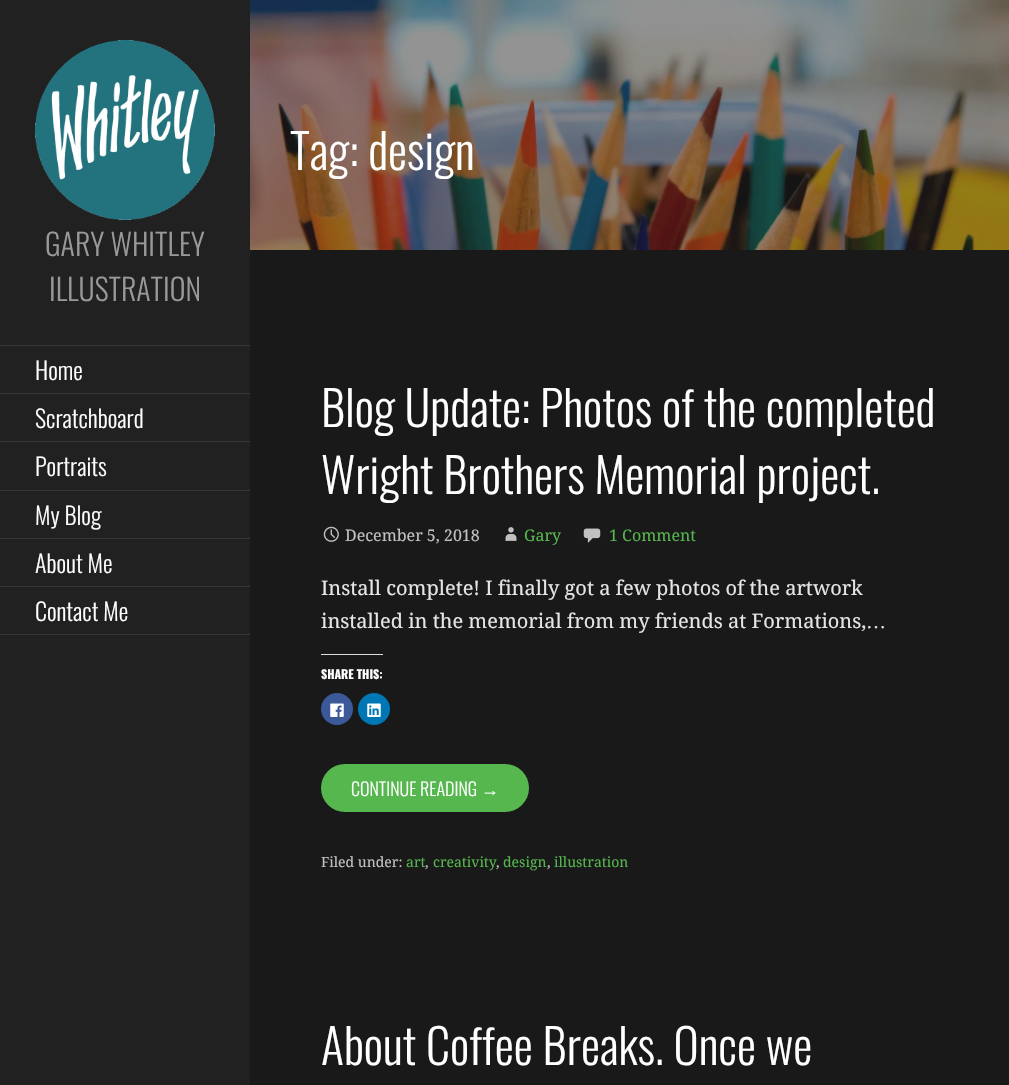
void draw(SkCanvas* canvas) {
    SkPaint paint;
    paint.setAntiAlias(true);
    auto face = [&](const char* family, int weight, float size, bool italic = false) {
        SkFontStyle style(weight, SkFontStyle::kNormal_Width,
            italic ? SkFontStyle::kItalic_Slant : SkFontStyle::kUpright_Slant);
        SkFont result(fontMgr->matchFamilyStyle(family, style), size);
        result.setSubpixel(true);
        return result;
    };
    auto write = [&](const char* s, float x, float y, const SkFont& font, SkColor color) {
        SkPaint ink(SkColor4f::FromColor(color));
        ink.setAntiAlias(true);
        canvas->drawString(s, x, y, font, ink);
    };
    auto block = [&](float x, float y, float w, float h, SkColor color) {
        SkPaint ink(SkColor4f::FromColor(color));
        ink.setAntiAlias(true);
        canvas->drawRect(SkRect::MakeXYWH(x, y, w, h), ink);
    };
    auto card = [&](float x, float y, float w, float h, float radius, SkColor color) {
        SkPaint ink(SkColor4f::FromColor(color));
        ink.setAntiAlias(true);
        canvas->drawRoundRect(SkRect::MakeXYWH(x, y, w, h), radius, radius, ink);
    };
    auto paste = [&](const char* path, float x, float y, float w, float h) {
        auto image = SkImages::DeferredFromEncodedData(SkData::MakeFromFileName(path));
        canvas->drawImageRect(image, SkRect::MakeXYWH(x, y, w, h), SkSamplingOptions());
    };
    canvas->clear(SkColorSetRGB(25, 25, 25));
    paste("pic1.png", 250, 0, 759, 250);
    auto kFont1 = face("Oswald", 300, 48);
    write("Tag: design", 290, 170, kFont1, SK_ColorWHITE);
    block(0, 0, 250, 1085, SkColorSetRGB(33, 33, 33));
    paste("pic2.png", 35, 40, 180, 180);
    auto kFont2 = face("Oswald", 300, 30);
    write("GARY WHITLEY", 45, 256, kFont2, SkColorSetRGB(153, 153, 153));
    write("ILLUSTRATION", 49, 301, kFont2, SkColorSetRGB(153, 153, 153));
    block(0, 345, 250, 1, SkColorSetRGB(55, 55, 55));
    block(0, 393, 250, 1, SkColorSetRGB(55, 55, 55));
    auto kFont3 = face("Oswald", 300, 24);
    write("Home", 35, 380, kFont3, SK_ColorWHITE);
    block(0, 441, 250, 1, SkColorSetRGB(55, 55, 55));
    write("Scratchboard", 35, 428, kFont3, SK_ColorWHITE);
    block(0, 490, 250, 1, SkColorSetRGB(55, 55, 55));
    write("Portraits", 35, 476, kFont3, SK_ColorWHITE);
    block(0, 538, 250, 1, SkColorSetRGB(55, 55, 55));
    write("My Blog", 35, 525, kFont3, SK_ColorWHITE);
    block(0, 586, 250, 1, SkColorSetRGB(55, 55, 55));
    write("About Me", 35, 573, kFont3, SK_ColorWHITE);
    block(0, 634, 250, 1, SkColorSetRGB(55, 55, 55));
    write("Contact Me", 35, 621, kFont3, SK_ColorWHITE);
    write("Blog Update: Photos of the completed", 321, 427, kFont1, SK_ColorWHITE);
    write("Wright Brothers Memorial project.", 321, 494, kFont1, SK_ColorWHITE);
    paste("pic3.png", 323, 526, 16, 16);
    auto kFont4 = face("Droid Serif", 400, 16);
    write("December 5, 2018", 345, 541, kFont4, SkColorSetRGB(193, 193, 193));
    paste("pic4.png", 505, 527, 12, 14);
    write("Gary", 524, 541, kFont4, SkColorSetRGB(85, 183, 78));
    paste("pic5.png", 583, 528, 18, 15);
    write("1 Comment", 609, 541, kFont4, SkColorSetRGB(85, 183, 78));
    auto kFont5 = face("Droid Serif", 400, 20);
    write("Install complete! I finally got a few photos of the artwork", 321, 595, kFont5, SkColorSetRGB(229, 229, 229));
    write("installed in the memorial from my friends at Formations,", 321, 628, kFont5, SkColorSetRGB(229, 229, 229));
    auto kFont6 = face("Liberation Serif", 400, 20);
    write("…", 866, 628, kFont6, SkColorSetRGB(229, 229, 229));
    block(321, 654, 62, 1, SkColorSetRGB(221, 221, 221));
    auto kFont7 = face("Oswald", 700, 12);
    write("SHARE THIS:", 321, 679, kFont7, SK_ColorWHITE);
    paint.setColor(SkColorSetRGB(59, 89, 152));
    canvas->drawCircle(337, 709, 16, paint);
    paste("pic6.png", 330, 703, 14, 14);
    paint.setColor(SkColorSetRGB(0, 119, 181));
    canvas->drawCircle(374, 709, 16, paint);
    paste("pic7.png", 367, 703, 14, 14);
    card(321, 764, 208, 48, 24, SkColorSetRGB(85, 183, 78));
    auto kFont8 = face("Oswald", 300, 18);
    write("CONTINUE READING", 351, 796, kFont8, SK_ColorWHITE);
    auto kFont9 = face("Liberation Sans", 400, 18);
    write("→", 481, 796, kFont9, SK_ColorWHITE);
    auto kFont10 = face("Droid Serif", 400, 14);
    write("Filed under:", 321, 867, kFont10, SkColorSetRGB(193, 193, 193));
    write("art", 406, 867, kFont10, SkColorSetRGB(85, 183, 78));
    write(",", 425, 867, kFont10, SkColorSetRGB(193, 193, 193));
    write("creativity", 433, 867, kFont10, SkColorSetRGB(85, 183, 78));
    write(",", 496, 867, kFont10, SkColorSetRGB(193, 193, 193));
    write("design", 503, 867, kFont10, SkColorSetRGB(85, 183, 78));
    write(",", 547, 867, kFont10, SkColorSetRGB(193, 193, 193));
    write("illustration", 554, 867, kFont10, SkColorSetRGB(85, 183, 78));
    write("About Coffee Breaks. Once we", 321, 1065, kFont1, SK_ColorWHITE);
}
